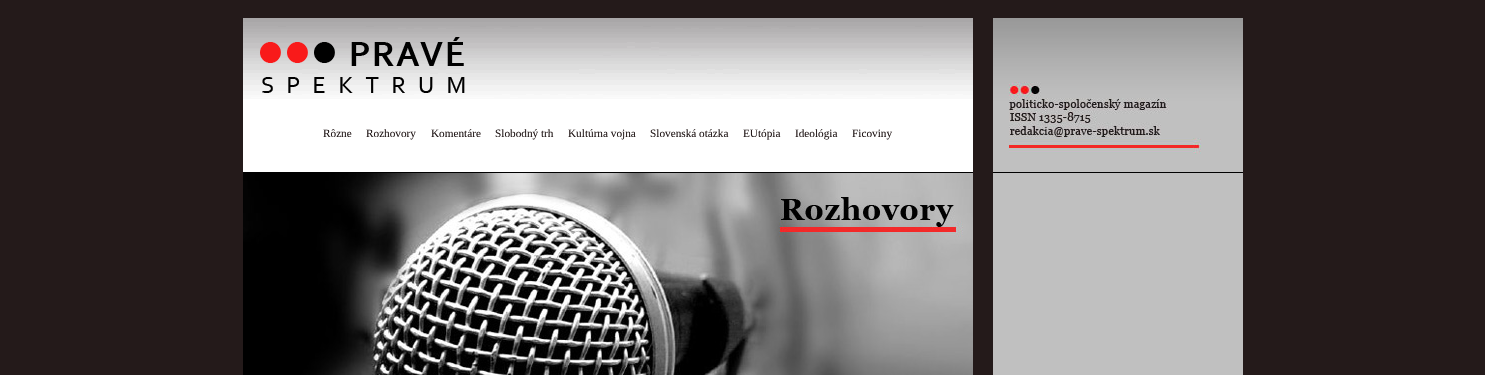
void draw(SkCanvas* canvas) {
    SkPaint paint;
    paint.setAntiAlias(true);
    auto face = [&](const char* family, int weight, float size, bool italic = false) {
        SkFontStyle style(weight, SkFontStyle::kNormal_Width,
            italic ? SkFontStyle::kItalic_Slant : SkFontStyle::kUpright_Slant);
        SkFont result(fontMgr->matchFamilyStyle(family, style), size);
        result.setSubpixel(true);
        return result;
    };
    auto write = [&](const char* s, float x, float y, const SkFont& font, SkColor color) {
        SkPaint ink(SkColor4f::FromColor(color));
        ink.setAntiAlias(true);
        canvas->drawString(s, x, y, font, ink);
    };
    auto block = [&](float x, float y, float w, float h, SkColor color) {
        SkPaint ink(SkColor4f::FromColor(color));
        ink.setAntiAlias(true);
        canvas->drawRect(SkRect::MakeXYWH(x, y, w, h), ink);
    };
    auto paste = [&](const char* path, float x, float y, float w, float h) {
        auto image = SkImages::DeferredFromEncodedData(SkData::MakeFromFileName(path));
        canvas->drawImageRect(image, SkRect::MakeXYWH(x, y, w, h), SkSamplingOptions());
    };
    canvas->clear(SkColorSetRGB(36, 26, 26));
    block(243, 99, 730, 73, SK_ColorWHITE);
    paste("pic1.png", 243, 18, 730, 81);
    paste("pic2.png", 260, 37, 205, 56);
    auto kFont1 = face("Liberation Serif", 400, 11.25f);
    write("Rôzne", 323, 137, kFont1, SkColorSetRGB(36, 26, 26));
    write("Rozhovory", 366, 137, kFont1, SkColorSetRGB(36, 26, 26));
    write("Komentáre", 431, 137, kFont1, SkColorSetRGB(36, 26, 26));
    write("Slobodný trh", 495, 137, kFont1, SkColorSetRGB(36, 26, 26));
    write("Kultúrna vojna", 568, 137, kFont1, SkColorSetRGB(36, 26, 26));
    write("Slovenská otázka", 650, 137, kFont1, SkColorSetRGB(36, 26, 26));
    write("EUtópia", 743, 137, kFont1, SkColorSetRGB(36, 26, 26));
    write("Ideológia", 795, 137, kFont1, SkColorSetRGB(36, 26, 26));
    write("Ficoviny", 852, 137, kFont1, SkColorSetRGB(36, 26, 26));
    block(993, 154, 250, 18, SkColorSetRGB(192, 192, 192));
    paste("pic3.png", 993, 18, 250, 136);
    block(243, 172, 730, 1, SK_ColorBLACK);
    paste("pic4.png", 243, 173, 730, 202);
    block(993, 173, 250, 202, SkColorSetRGB(192, 192, 192));
    block(993, 172, 250, 1, SK_ColorBLACK);
}
